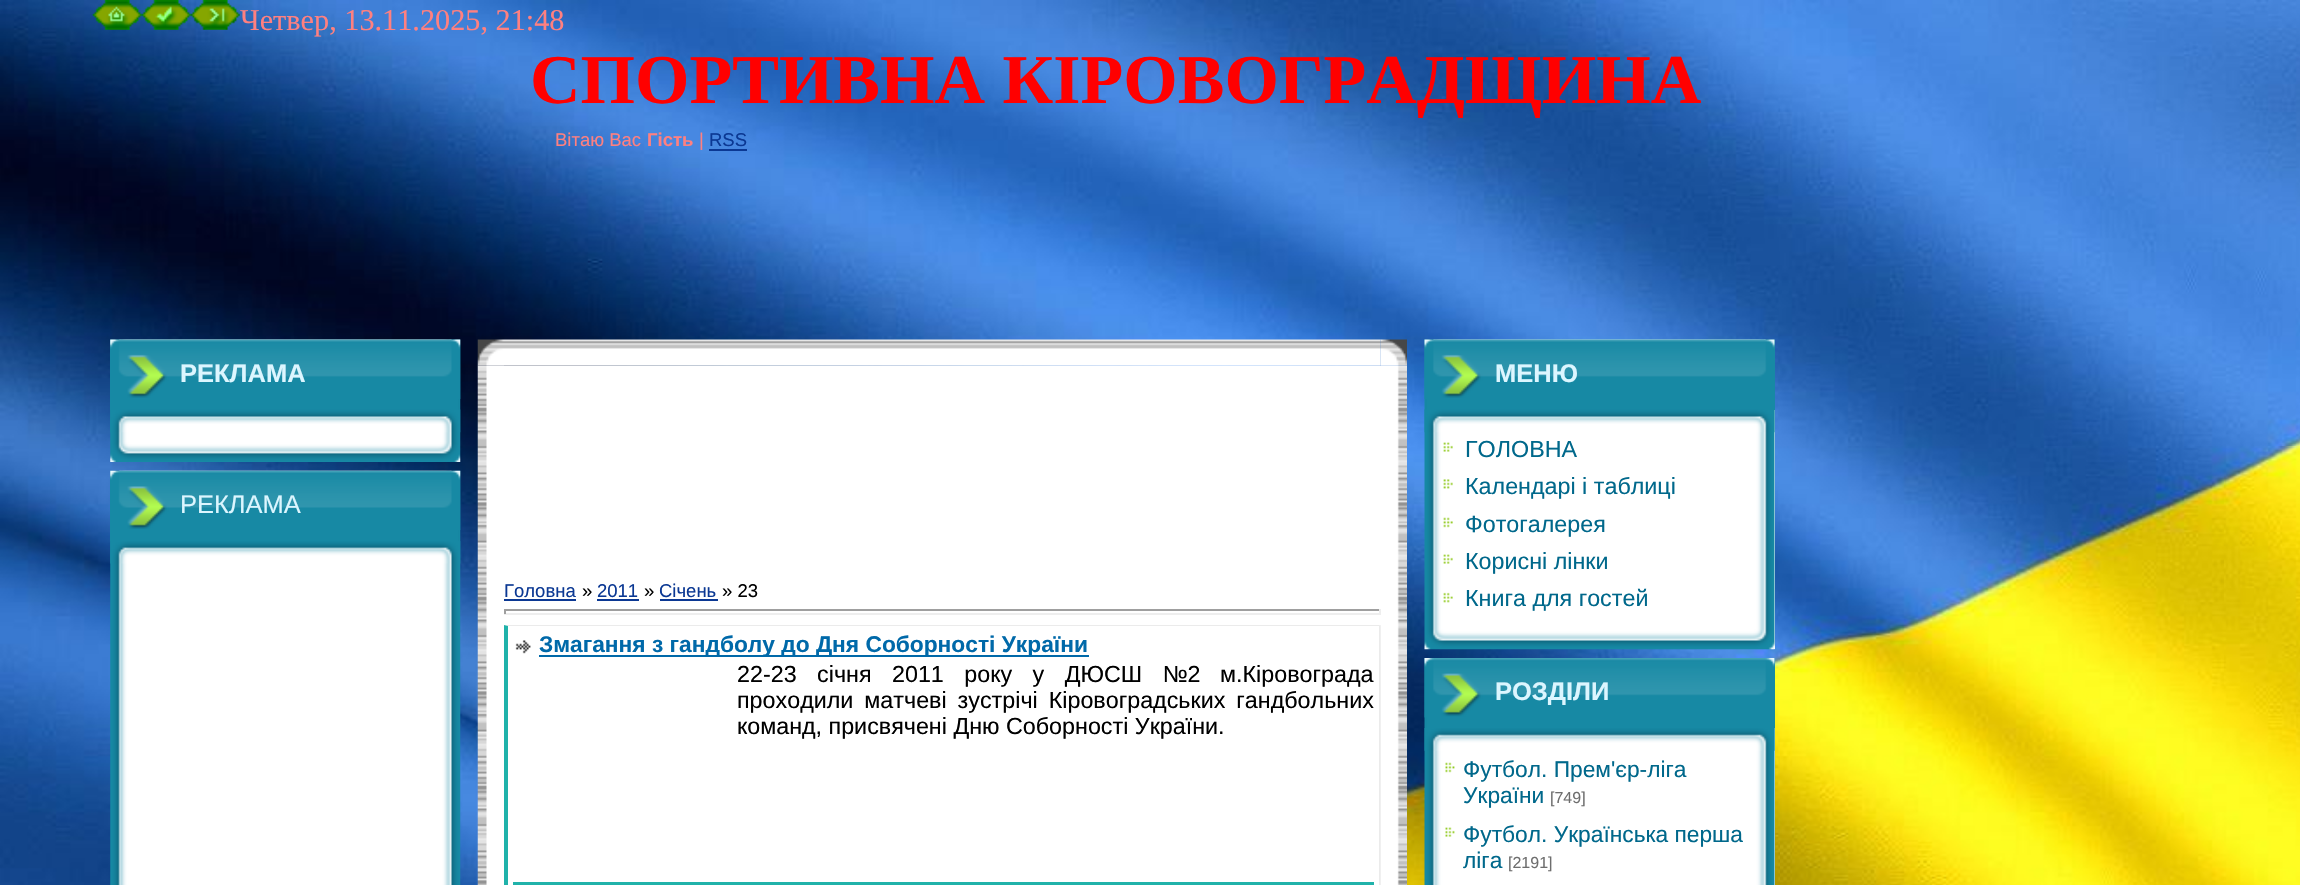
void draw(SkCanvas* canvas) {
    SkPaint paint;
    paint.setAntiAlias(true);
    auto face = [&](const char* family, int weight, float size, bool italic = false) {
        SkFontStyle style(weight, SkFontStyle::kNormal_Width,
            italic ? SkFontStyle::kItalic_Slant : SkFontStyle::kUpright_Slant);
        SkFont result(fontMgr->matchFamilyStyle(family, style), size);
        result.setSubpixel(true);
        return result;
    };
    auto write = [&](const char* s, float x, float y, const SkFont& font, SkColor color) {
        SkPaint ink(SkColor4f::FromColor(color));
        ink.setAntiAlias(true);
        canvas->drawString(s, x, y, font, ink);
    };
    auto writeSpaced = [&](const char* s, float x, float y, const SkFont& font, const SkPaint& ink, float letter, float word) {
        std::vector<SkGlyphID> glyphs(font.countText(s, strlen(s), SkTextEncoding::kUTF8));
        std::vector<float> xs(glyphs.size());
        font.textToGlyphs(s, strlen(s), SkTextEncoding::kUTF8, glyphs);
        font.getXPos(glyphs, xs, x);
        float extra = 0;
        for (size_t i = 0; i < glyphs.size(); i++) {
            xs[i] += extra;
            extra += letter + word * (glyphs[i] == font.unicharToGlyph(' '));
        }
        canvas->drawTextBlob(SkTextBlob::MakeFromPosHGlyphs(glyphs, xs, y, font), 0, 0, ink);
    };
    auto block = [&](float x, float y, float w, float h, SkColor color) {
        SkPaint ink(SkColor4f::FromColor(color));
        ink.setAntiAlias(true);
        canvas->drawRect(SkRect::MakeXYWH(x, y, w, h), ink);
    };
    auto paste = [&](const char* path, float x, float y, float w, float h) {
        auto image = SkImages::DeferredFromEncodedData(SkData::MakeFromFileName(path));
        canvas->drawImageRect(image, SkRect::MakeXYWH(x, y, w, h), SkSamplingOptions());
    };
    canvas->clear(SK_ColorWHITE);
    paste("pic1.png", 0, 0, 2300, 885);
    paste("pic2.png", 92, 0, 50, 30);
    paste("pic3.png", 141, 0, 50, 30);
    paste("pic4.png", 190, 0, 50, 30);
    auto kFont1 = face("Liberation Serif", 400, 30.25f);
    write("Четвер, 13.11.2025, 21:48", 240, 30, kFont1, SkColorSetRGB(255, 128, 128));
    auto kFont2 = face("Liberation Serif", 700, 70);
    write("СПОРТИВНА КІРОВОГРАДЩИНА", 530, 103, kFont2, SkColorSetRGB(255, 0, 0));
    auto kFont3 = face("Liberation Sans", 400, 18.5f);
    write("Вітаю Вас", 555, 146, kFont3, SkColorSetRGB(255, 128, 128));
    auto kFont4 = face("Liberation Sans", 700, 18.5f);
    write("Гість", 647, 146, kFont4, SkColorSetRGB(255, 128, 128));
    write("|", 699, 146, kFont3, SkColorSetRGB(255, 128, 128));
    write("RSS", 709, 146, kFont3, SkColorSetRGB(11, 56, 147));
    block(709, 149, 38, 2, SkColorSetRGB(11, 56, 147));
    paste("pic5.png", 110, 339, 351, 123);
    block(110, 340, 348, 70, SkColorSetRGB(23, 137, 164));
    paste("pic6.png", 110, 339, 351, 60);
    auto kFont5 = face("Liberation Sans", 700, 25.5f);
    write("РЕКЛАМА", 180, 382, kFont5, SkColorSetRGB(220, 246, 255));
    paste("pic7.png", 110, 409, 351, 24);
    paste("pic8.png", 110, 470, 351, 415);
    block(110, 471, 348, 70, SkColorSetRGB(23, 137, 164));
    paste("pic9.png", 110, 470, 351, 60);
    auto kFont6 = face("Liberation Sans", 400, 25.5f);
    write("РЕКЛАМА", 180, 513, kFont6, SkColorSetRGB(220, 246, 255));
    paste("pic10.png", 110, 541, 351, 23);
    paste("pic14.png", 477, 365, 27, 520);
    paste("pic11.png", 477, 339, 27, 27);
    paste("pic12.png", 504, 339, 877, 27);
    block(504, 366, 877, 519, SK_ColorWHITE);
    paint.setColor(SkColorSetRGB(235, 235, 235));
    canvas->drawPath(SkPathBuilder().moveTo(504, 625).lineTo(1381, 625).lineTo(1379, 626).lineTo(508, 626).close().detach(), paint);
    canvas->drawPath(SkPathBuilder().moveTo(1381, 625).lineTo(1381, 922).lineTo(1379, 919).lineTo(1379, 626).close().detach(), paint);
    paste("pic16.png", 1380, 365, 27, 520);
    paste("pic13.png", 1380, 339, 27, 27);
    write("Головна", 504, 597, kFont3, SkColorSetRGB(11, 56, 147));
    block(504, 599, 72, 2, SkColorSetRGB(11, 56, 147));
    write("»", 582, 597, kFont3, SK_ColorBLACK);
    write("2011", 597, 597, kFont3, SkColorSetRGB(11, 56, 147));
    block(597, 599, 42, 2, SkColorSetRGB(11, 56, 147));
    write("»", 644, 597, kFont3, SK_ColorBLACK);
    write("Січень", 659, 597, kFont3, SkColorSetRGB(11, 56, 147));
    block(660, 599, 58, 2, SkColorSetRGB(11, 56, 147));
    write("» 23", 722, 597, kFont3, SK_ColorBLACK);
    block(504, 609, 877, 2, SkColorSetRGB(159, 159, 159));
    block(1379, 609, 2, 5, SkColorSetRGB(238, 238, 238));
    block(504, 613, 877, 2, SkColorSetRGB(238, 238, 238));
    block(504, 609, 2, 5, SkColorSetRGB(159, 159, 159));
    paint.setColor(SkColorSetRGB(32, 178, 170));
    canvas->drawPath(SkPathBuilder().moveTo(504, 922).lineTo(504, 625).lineTo(508, 626).lineTo(508, 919).close().detach(), paint);
    paste("pic15.png", 515, 640, 16, 14);
    block(539, 655, 550, 2, SkColorSetRGB(0, 105, 169));
    auto kFont7 = face("Liberation Sans", 700, 22.75f);
    write("Змагання з гандболу до Дня Соборності України", 539, 652, kFont7, SkColorSetRGB(0, 105, 169));
    auto kFont8 = face("Liberation Sans", 400, 23.3f);
    paint.setColor(SK_ColorBLACK);
    writeSpaced("22-23 січня 2011 року у ДЮСШ №2", 737, 682, kFont8, paint, 0, 14);
    write("м.Кіровограда", 1220, 682, kFont8, SK_ColorBLACK);
    writeSpaced("проходили матчеві зустрічі Кіровоградських гандбольних", 737, 708, kFont8, paint, 0, 4.5f);
    write("команд, присвячені Дню Соборності України.", 737, 734, kFont8, SK_ColorBLACK);
    block(513, 882, 861, 3, SkColorSetRGB(32, 178, 170));
    block(1774, 410, 1, 239, SK_ColorWHITE);
    paste("pic17.png", 1424, 339, 351, 311);
    block(1427, 340, 348, 70, SkColorSetRGB(23, 137, 164));
    paste("pic18.png", 1424, 339, 351, 60);
    write("МЕНЮ", 1495, 382, kFont5, SkColorSetRGB(220, 246, 255));
    paste("pic19.png", 1424, 409, 351, 24);
    paste("pic20.png", 1443, 442, 10, 10);
    write("ГОЛОВНА", 1465, 457, kFont8, SkColorSetRGB(0, 104, 139));
    paste("pic21.png", 1443, 479, 10, 10);
    write("Календарі і таблиці", 1465, 494, kFont8, SkColorSetRGB(0, 104, 139));
    paste("pic22.png", 1443, 517, 10, 11);
    write("Фотогалерея", 1465, 532, kFont8, SkColorSetRGB(0, 104, 139));
    paste("pic20.png", 1443, 554, 10, 10);
    write("Корисні лінки", 1465, 569, kFont8, SkColorSetRGB(0, 104, 139));
    paste("pic23.png", 1443, 592, 10, 11);
    write("Книга для гостей", 1465, 606, kFont8, SkColorSetRGB(0, 104, 139));
    block(1774, 728, 1, 157, SK_ColorWHITE);
    paste("pic24.png", 1424, 658, 351, 227);
    block(1427, 658, 348, 70, SkColorSetRGB(23, 137, 164));
    paste("pic25.png", 1424, 658, 351, 60);
    write("РОЗДІЛИ", 1495, 700, kFont5, SkColorSetRGB(220, 246, 255));
    paste("pic26.png", 1424, 728, 351, 23);
    paste("pic27.png", 1445, 762, 10, 11);
    auto kFont9 = face("Liberation Sans", 400, 22.75f);
    write("Футбол. Прем'єр-ліга", 1463, 777, kFont9, SkColorSetRGB(0, 104, 139));
    write("України", 1463, 803, kFont9, SkColorSetRGB(0, 104, 139));
    auto kFont10 = face("Liberation Sans", 400, 16);
    write("[749]", 1550, 803, kFont10, SkColorSetRGB(110, 110, 110));
    paste("pic28.png", 1445, 827, 10, 10);
    write("Футбол. Українська перша", 1463, 842, kFont9, SkColorSetRGB(0, 104, 139));
    write("ліга", 1463, 868, kFont9, SkColorSetRGB(0, 104, 139));
    write("[2191]", 1508, 868, kFont10, SkColorSetRGB(110, 110, 110));
}
